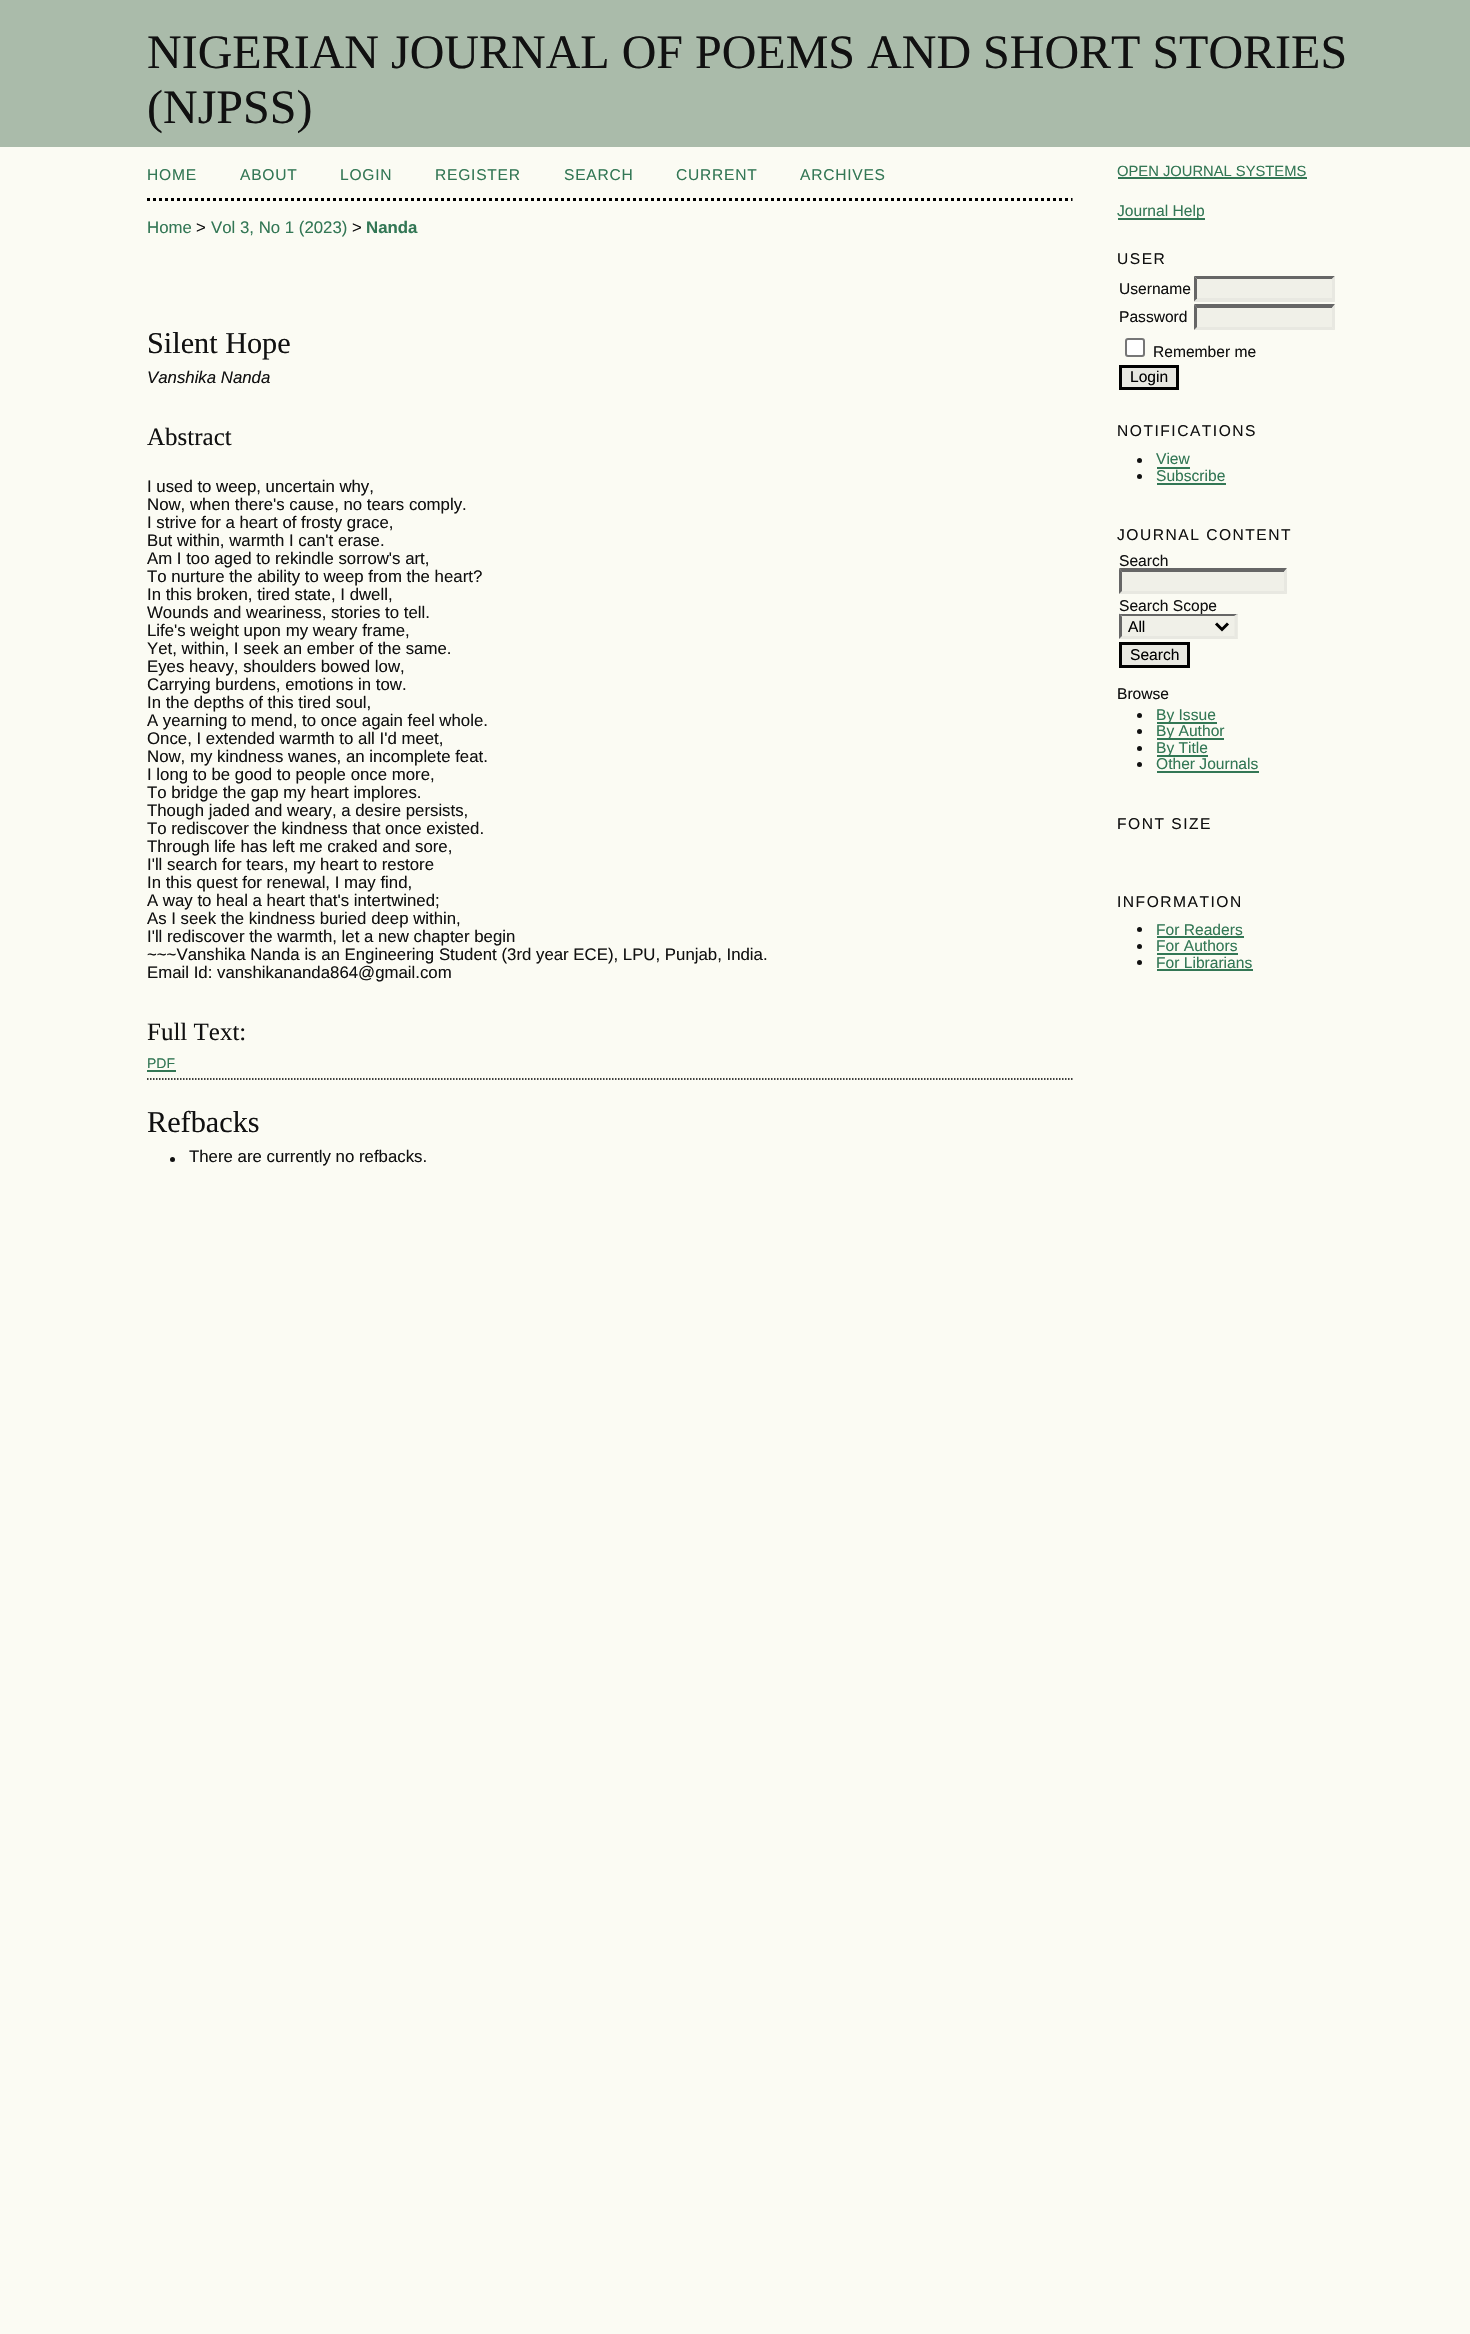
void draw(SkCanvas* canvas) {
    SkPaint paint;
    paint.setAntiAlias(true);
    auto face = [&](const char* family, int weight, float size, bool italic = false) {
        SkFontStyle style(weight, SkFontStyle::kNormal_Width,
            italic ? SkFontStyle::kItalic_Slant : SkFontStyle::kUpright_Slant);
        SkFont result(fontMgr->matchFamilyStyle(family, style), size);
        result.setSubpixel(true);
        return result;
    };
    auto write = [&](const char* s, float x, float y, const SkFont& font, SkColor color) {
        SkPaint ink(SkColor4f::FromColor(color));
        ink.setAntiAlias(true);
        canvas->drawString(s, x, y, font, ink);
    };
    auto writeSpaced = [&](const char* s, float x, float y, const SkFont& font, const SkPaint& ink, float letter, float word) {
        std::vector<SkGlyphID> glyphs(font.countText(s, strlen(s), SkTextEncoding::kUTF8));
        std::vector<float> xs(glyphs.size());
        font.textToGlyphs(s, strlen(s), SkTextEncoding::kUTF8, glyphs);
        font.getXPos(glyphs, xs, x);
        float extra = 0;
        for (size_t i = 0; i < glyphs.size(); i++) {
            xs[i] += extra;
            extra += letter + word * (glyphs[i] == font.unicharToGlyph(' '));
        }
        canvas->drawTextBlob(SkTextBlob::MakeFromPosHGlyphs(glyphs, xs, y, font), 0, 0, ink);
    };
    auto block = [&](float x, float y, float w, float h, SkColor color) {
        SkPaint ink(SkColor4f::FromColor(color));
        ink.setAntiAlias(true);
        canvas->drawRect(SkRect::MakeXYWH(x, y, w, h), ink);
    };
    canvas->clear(SkColorSetRGB(251, 251, 243));
    block(0, 0, 1470, 147, SkColorSetRGB(170, 187, 170));
    auto kFont1 = face("Liberation Serif", 400, 48);
    write("NIGERIAN JOURNAL OF POEMS AND SHORT STORIES", 147, 68, kFont1, SkColorSetRGB(17, 17, 17));
    write("(NJPSS)", 147, 123, kFont1, SkColorSetRGB(17, 17, 17));
    paint.setStyle(SkPaint::kStroke_Style);
    paint.setStrokeWidth(3);
    paint.setColor(SK_ColorBLACK);
    paint.setPathEffect(SkDashPathEffect::Make({{3, 3}}, 0));
    canvas->drawPath(SkPathBuilder().moveTo(147, 199.5f).lineTo(1072.5f, 199.5f).detach(), paint);
    paint.setPathEffect(nullptr);
    auto kFont2 = face("Liberation Sans", 400, 15.6f);
    paint.setStyle(SkPaint::kFill_Style);
    paint.setColor(SkColorSetRGB(51, 119, 85));
    writeSpaced("HOME", 147, 180, kFont2, paint, 0.75f, 0);
    writeSpaced("ABOUT", 240, 180, kFont2, paint, 0.75f, 0);
    writeSpaced("LOGIN", 340, 180, kFont2, paint, 0.75f, 0);
    writeSpaced("REGISTER", 435, 180, kFont2, paint, 0.75f, 0);
    writeSpaced("SEARCH", 564, 180, kFont2, paint, 0.75f, 0);
    writeSpaced("CURRENT", 676, 180, kFont2, paint, 0.75f, 0);
    writeSpaced("ARCHIVES", 800, 180, kFont2, paint, 0.75f, 0);
    auto kFont3 = face("Liberation Sans", 400, 16.8f);
    write("Home", 147, 233, kFont3, SkColorSetRGB(51, 119, 85));
    write(">", 196, 233, kFont3, SkColorSetRGB(17, 17, 17));
    write("Vol 3, No 1 (2023)", 211, 233, kFont3, SkColorSetRGB(51, 119, 85));
    write(">", 352, 233, kFont3, SkColorSetRGB(17, 17, 17));
    auto kFont4 = face("Liberation Sans", 700, 16.8f);
    write("Nanda", 366, 233, kFont4, SkColorSetRGB(51, 119, 85));
    auto kFont5 = face("Liberation Serif", 400, 30.25f);
    write("Silent Hope", 147, 353, kFont5, SkColorSetRGB(17, 17, 17));
    auto kFont6 = face("Liberation Sans", 400, 16.8f, true);
    write("Vanshika Nanda", 147, 383, kFont6, SkColorSetRGB(17, 17, 17));
    auto kFont7 = face("Liberation Serif", 400, 25);
    write("Abstract", 147, 445, kFont7, SkColorSetRGB(17, 17, 17));
    write("I used to weep, uncertain why,", 147, 492, kFont3, SkColorSetRGB(17, 17, 17));
    write("Now, when there's cause, no tears comply.", 147, 510, kFont3, SkColorSetRGB(17, 17, 17));
    write("I strive for a heart of frosty grace,", 147, 528, kFont3, SkColorSetRGB(17, 17, 17));
    write("But within, warmth I can't erase.", 147, 546, kFont3, SkColorSetRGB(17, 17, 17));
    write("Am I too aged to rekindle sorrow's art,", 147, 564, kFont3, SkColorSetRGB(17, 17, 17));
    write("To nurture the ability to weep from the heart?", 147, 582, kFont3, SkColorSetRGB(17, 17, 17));
    write("In this broken, tired state, I dwell,", 147, 600, kFont3, SkColorSetRGB(17, 17, 17));
    write("Wounds and weariness, stories to tell.", 147, 618, kFont3, SkColorSetRGB(17, 17, 17));
    write("Life's weight upon my weary frame,", 147, 636, kFont3, SkColorSetRGB(17, 17, 17));
    write("Yet, within, I seek an ember of the same.", 147, 654, kFont3, SkColorSetRGB(17, 17, 17));
    write("Eyes heavy, shoulders bowed low,", 147, 672, kFont3, SkColorSetRGB(17, 17, 17));
    write("Carrying burdens, emotions in tow.", 147, 690, kFont3, SkColorSetRGB(17, 17, 17));
    write("In the depths of this tired soul,", 147, 708, kFont3, SkColorSetRGB(17, 17, 17));
    write("A yearning to mend, to once again feel whole.", 147, 726, kFont3, SkColorSetRGB(17, 17, 17));
    write("Once, I extended warmth to all I'd meet,", 147, 744, kFont3, SkColorSetRGB(17, 17, 17));
    write("Now, my kindness wanes, an incomplete feat.", 147, 762, kFont3, SkColorSetRGB(17, 17, 17));
    write("I long to be good to people once more,", 147, 780, kFont3, SkColorSetRGB(17, 17, 17));
    write("To bridge the gap my heart implores.", 147, 798, kFont3, SkColorSetRGB(17, 17, 17));
    write("Though jaded and weary, a desire persists,", 147, 816, kFont3, SkColorSetRGB(17, 17, 17));
    write("To rediscover the kindness that once existed.", 147, 834, kFont3, SkColorSetRGB(17, 17, 17));
    write("Through life has left me craked and sore,", 147, 852, kFont3, SkColorSetRGB(17, 17, 17));
    write("I'll search for tears, my heart to restore", 147, 870, kFont3, SkColorSetRGB(17, 17, 17));
    write("In this quest for renewal, I may find,", 147, 888, kFont3, SkColorSetRGB(17, 17, 17));
    write("A way to heal a heart that's intertwined;", 147, 906, kFont3, SkColorSetRGB(17, 17, 17));
    write("As I seek the kindness buried deep within,", 147, 924, kFont3, SkColorSetRGB(17, 17, 17));
    write("I'll rediscover the warmth, let a new chapter begin", 147, 942, kFont3, SkColorSetRGB(17, 17, 17));
    write("~~~Vanshika Nanda is an Engineering Student (3rd year ECE), LPU, Punjab, India.", 147, 960, kFont3, SkColorSetRGB(17, 17, 17));
    write("Email Id: vanshikananda864@gmail.com", 147, 978, kFont3, SkColorSetRGB(17, 17, 17));
    write("Full Text:", 147, 1040, kFont7, SkColorSetRGB(17, 17, 17));
    auto kFont8 = face("Liberation Sans", 400, 14);
    write("PDF", 147, 1068, kFont8, SkColorSetRGB(51, 119, 85));
    block(147, 1070, 29, 2, SkColorSetRGB(51, 119, 85));
    paint.setStyle(SkPaint::kStroke_Style);
    paint.setStrokeWidth(1.5f);
    paint.setColor(SK_ColorBLACK);
    paint.setPathEffect(SkDashPathEffect::Make({{1.5f, 1.5f}}, 0));
    canvas->drawPath(SkPathBuilder().moveTo(147, 1079).lineTo(1072.5f, 1079).detach(), paint);
    paint.setPathEffect(nullptr);
    write("Refbacks", 147, 1132, kFont5, SkColorSetRGB(17, 17, 17));
    paint.setStyle(SkPaint::kFill_Style);
    paint.setColor(SkColorSetRGB(17, 17, 17));
    canvas->drawCircle(172.5f, 1159.5f, 2.5f, paint);
    write("There are currently no refbacks.", 189, 1162, kFont3, SkColorSetRGB(17, 17, 17));
    auto kFont9 = face("Liberation Sans", 400, 14.75f);
    write("OPEN JOURNAL SYSTEMS", 1117, 176, kFont9, SkColorSetRGB(51, 119, 85));
    block(1118, 177, 189, 2, SkColorSetRGB(51, 119, 85));
    block(1118, 218, 87, 2, SkColorSetRGB(51, 119, 85));
    write("Journal Help", 1117, 216, kFont2, SkColorSetRGB(51, 119, 85));
    writeSpaced("USER", 1117, 264, kFont2, paint, 1.5f, 0);
    write("Username", 1119, 294, kFont2, SkColorSetRGB(17, 17, 17));
    block(1194, 276, 141, 26, SkColorSetRGB(240, 240, 232));
    paint.setColor(SkColorSetRGB(102, 102, 102));
    canvas->drawPath(SkPathBuilder().moveTo(1194, 276).lineTo(1335, 276).lineTo(1332, 279).lineTo(1197, 279).close().detach(), paint);
    paint.setColor(SkColorSetRGB(232, 232, 225));
    canvas->drawPath(SkPathBuilder().moveTo(1335, 276).lineTo(1335, 301.5f).lineTo(1332, 298.5f).lineTo(1332, 279).close().detach(), paint);
    canvas->drawPath(SkPathBuilder().moveTo(1335, 302).lineTo(1194, 302).lineTo(1197, 298).lineTo(1332, 298).close().detach(), paint);
    paint.setColor(SkColorSetRGB(102, 102, 102));
    canvas->drawPath(SkPathBuilder().moveTo(1194, 301.5f).lineTo(1194, 276).lineTo(1197, 279).lineTo(1197, 298.5f).close().detach(), paint);
    write("Password", 1119, 322, kFont2, SkColorSetRGB(17, 17, 17));
    block(1194, 305, 141, 25, SkColorSetRGB(240, 240, 232));
    canvas->drawPath(SkPathBuilder().moveTo(1194, 304).lineTo(1335, 304).lineTo(1332, 308).lineTo(1197, 308).close().detach(), paint);
    paint.setColor(SkColorSetRGB(232, 232, 225));
    canvas->drawPath(SkPathBuilder().moveTo(1335, 304.5f).lineTo(1335, 330).lineTo(1332, 327).lineTo(1332, 307.5f).close().detach(), paint);
    canvas->drawPath(SkPathBuilder().moveTo(1335, 330).lineTo(1194, 330).lineTo(1197, 327).lineTo(1332, 327).close().detach(), paint);
    paint.setColor(SkColorSetRGB(102, 102, 102));
    canvas->drawPath(SkPathBuilder().moveTo(1194, 330).lineTo(1194, 304.5f).lineTo(1197, 307.5f).lineTo(1197, 327).close().detach(), paint);
    paint.setColor(SK_ColorWHITE);
    canvas->drawRoundRect(SkRect::MakeXYWH(1126, 339, 18, 17), 2, 2, paint);
    paint.setStyle(SkPaint::kStroke_Style);
    paint.setStrokeWidth(2);
    paint.setColor(SkColorSetRGB(118, 118, 118));
    canvas->drawRoundRect(SkRect::MakeXYWH(1126, 339, 18, 17), 2, 2, paint);
    write("Remember me", 1153, 357, kFont2, SkColorSetRGB(17, 17, 17));
    paint.setStyle(SkPaint::kFill_Style);
    paint.setColor(SkColorSetRGB(232, 232, 225));
    canvas->drawRect(SkRect::MakeXYWH(1120.5f, 366.5f, 57, 22), paint);
    paint.setStyle(SkPaint::kStroke_Style);
    paint.setStrokeWidth(3);
    paint.setColor(SK_ColorBLACK);
    canvas->drawRect(SkRect::MakeXYWH(1120.5f, 366.5f, 57, 22), paint);
    write("Login", 1130, 382, kFont2, SK_ColorBLACK);
    paint.setStyle(SkPaint::kFill_Style);
    paint.setColor(SkColorSetRGB(17, 17, 17));
    writeSpaced("NOTIFICATIONS", 1117, 436, kFont2, paint, 1.5f, 0);
    canvas->drawCircle(1139.5f, 460.5f, 2.5f, paint);
    write("View", 1156, 464, kFont2, SkColorSetRGB(51, 119, 85));
    block(1157, 467, 33, 2, SkColorSetRGB(51, 119, 85));
    canvas->drawCircle(1139.5f, 476.5f, 2.5f, paint);
    write("Subscribe", 1156, 481, kFont2, SkColorSetRGB(51, 119, 85));
    block(1157, 483, 69, 2, SkColorSetRGB(51, 119, 85));
    writeSpaced("JOURNAL CONTENT", 1117, 540, kFont2, paint, 1.5f, 0);
    write("Search", 1119, 566, kFont2, SkColorSetRGB(17, 17, 17));
    block(1119, 569, 168, 25, SkColorSetRGB(240, 240, 232));
    paint.setColor(SkColorSetRGB(102, 102, 102));
    canvas->drawPath(SkPathBuilder().moveTo(1119, 568).lineTo(1287, 568).lineTo(1284, 572).lineTo(1122, 572).close().detach(), paint);
    paint.setColor(SkColorSetRGB(232, 232, 225));
    canvas->drawPath(SkPathBuilder().moveTo(1287, 568.5f).lineTo(1287, 594).lineTo(1284, 591).lineTo(1284, 571.5f).close().detach(), paint);
    canvas->drawPath(SkPathBuilder().moveTo(1287, 594).lineTo(1119, 594).lineTo(1122, 591).lineTo(1284, 591).close().detach(), paint);
    paint.setColor(SkColorSetRGB(102, 102, 102));
    canvas->drawPath(SkPathBuilder().moveTo(1119, 594).lineTo(1119, 568.5f).lineTo(1122, 571.5f).lineTo(1122, 591).close().detach(), paint);
    write("Search Scope", 1119, 611, kFont2, SkColorSetRGB(17, 17, 17));
    block(1119, 614, 119, 25, SkColorSetRGB(240, 240, 232));
    canvas->drawPath(SkPathBuilder().moveTo(1119, 614).lineTo(1238, 614).lineTo(1234, 616).lineTo(1122, 616).close().detach(), paint);
    paint.setColor(SkColorSetRGB(232, 232, 225));
    canvas->drawPath(SkPathBuilder().moveTo(1237.5f, 613.5f).lineTo(1237.5f, 639).lineTo(1234.5f, 636).lineTo(1234.5f, 616.5f).close().detach(), paint);
    canvas->drawPath(SkPathBuilder().moveTo(1238, 639).lineTo(1119, 639).lineTo(1122, 636).lineTo(1234, 636).close().detach(), paint);
    paint.setColor(SkColorSetRGB(102, 102, 102));
    canvas->drawPath(SkPathBuilder().moveTo(1119, 639).lineTo(1119, 613.5f).lineTo(1122, 616.5f).lineTo(1122, 636).close().detach(), paint);
    paint.setStyle(SkPaint::kStroke_Style);
    paint.setColor(SK_ColorBLACK);
    canvas->drawPath(SkPathBuilder().moveTo(1216, 623.5f).lineTo(1222, 629.5f).lineTo(1228, 623.5f).detach(), paint);
    write("All", 1128, 632, kFont2, SK_ColorBLACK);
    paint.setStyle(SkPaint::kFill_Style);
    paint.setColor(SkColorSetRGB(232, 232, 225));
    canvas->drawRect(SkRect::MakeXYWH(1120.5f, 643.5f, 68, 23), paint);
    paint.setStyle(SkPaint::kStroke_Style);
    paint.setColor(SK_ColorBLACK);
    canvas->drawRect(SkRect::MakeXYWH(1120.5f, 643.5f, 68, 23), paint);
    write("Search", 1130, 660, kFont2, SK_ColorBLACK);
    write("Browse", 1117, 699, kFont2, SkColorSetRGB(17, 17, 17));
    paint.setStyle(SkPaint::kFill_Style);
    paint.setColor(SkColorSetRGB(17, 17, 17));
    canvas->drawCircle(1139.5f, 715.5f, 2.5f, paint);
    block(1157, 722, 60, 2, SkColorSetRGB(51, 119, 85));
    write("By Issue", 1156, 720, kFont2, SkColorSetRGB(51, 119, 85));
    canvas->drawCircle(1139.5f, 731.5f, 2.5f, paint);
    block(1157, 738, 67, 2, SkColorSetRGB(51, 119, 85));
    write("By Author", 1156, 736, kFont2, SkColorSetRGB(51, 119, 85));
    canvas->drawCircle(1139.5f, 748.5f, 2.5f, paint);
    block(1157, 755, 51, 2, SkColorSetRGB(51, 119, 85));
    write("By Title", 1156, 753, kFont2, SkColorSetRGB(51, 119, 85));
    canvas->drawCircle(1139.5f, 764.5f, 2.5f, paint);
    write("Other Journals", 1156, 769, kFont2, SkColorSetRGB(51, 119, 85));
    block(1157, 771, 102, 2, SkColorSetRGB(51, 119, 85));
    writeSpaced("FONT SIZE", 1117, 829, kFont2, paint, 1.5f, 0);
    writeSpaced("INFORMATION", 1117, 907, kFont2, paint, 1.5f, 0);
    canvas->drawCircle(1139.5f, 929.5f, 2.5f, paint);
    write("For Readers", 1156, 935, kFont2, SkColorSetRGB(51, 119, 85));
    block(1157, 936, 87, 2, SkColorSetRGB(51, 119, 85));
    canvas->drawCircle(1139.5f, 946.5f, 2.5f, paint);
    write("For Authors", 1156, 951, kFont2, SkColorSetRGB(51, 119, 85));
    block(1157, 953, 81, 2, SkColorSetRGB(51, 119, 85));
    canvas->drawCircle(1139.5f, 962.5f, 2.5f, paint);
    write("For Librarians", 1156, 968, kFont2, SkColorSetRGB(51, 119, 85));
    block(1157, 969, 96, 2, SkColorSetRGB(51, 119, 85));
}
